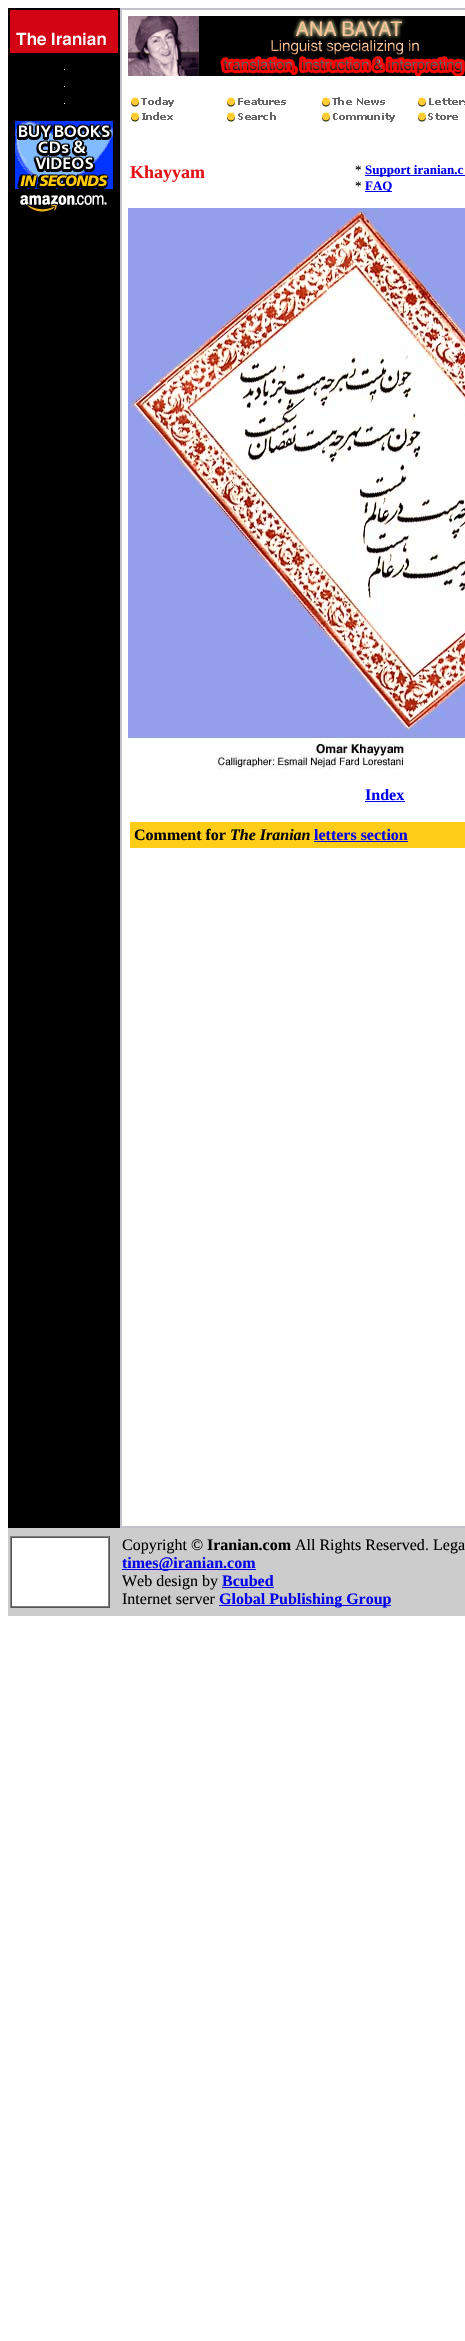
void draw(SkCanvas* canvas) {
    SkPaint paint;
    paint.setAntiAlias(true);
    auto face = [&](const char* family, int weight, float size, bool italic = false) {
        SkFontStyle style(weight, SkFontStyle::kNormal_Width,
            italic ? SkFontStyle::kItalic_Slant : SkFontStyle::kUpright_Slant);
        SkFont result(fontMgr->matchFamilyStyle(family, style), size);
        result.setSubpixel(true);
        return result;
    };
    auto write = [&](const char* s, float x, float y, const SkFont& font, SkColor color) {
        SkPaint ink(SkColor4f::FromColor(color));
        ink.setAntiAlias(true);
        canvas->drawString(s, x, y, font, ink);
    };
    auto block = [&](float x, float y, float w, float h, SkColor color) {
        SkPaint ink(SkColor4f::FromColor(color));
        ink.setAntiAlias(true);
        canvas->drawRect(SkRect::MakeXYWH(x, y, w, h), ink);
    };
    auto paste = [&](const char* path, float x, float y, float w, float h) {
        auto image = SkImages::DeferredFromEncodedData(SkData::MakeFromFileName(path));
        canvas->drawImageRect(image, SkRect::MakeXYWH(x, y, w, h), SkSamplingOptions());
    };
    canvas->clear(SK_ColorWHITE);
    block(8, 8, 112, 1520, SK_ColorBLACK);
    paste("pic1.png", 10, 10, 108, 43);
    block(64, 69, 1, 1, SK_ColorWHITE);
    block(64, 86, 1, 1, SK_ColorWHITE);
    block(64, 103, 1, 1, SK_ColorWHITE);
    paste("pic2.png", 15, 121, 98, 91);
    block(120, 8, 345, 1520, SkColorSetRGB(194, 194, 205));
    block(122, 10, 343, 1516, SK_ColorWHITE);
    paste("pic3.png", 128, 16, 337, 60);
    paste("pic4.png", 131, 97, 43, 10);
    paste("pic5.png", 227, 97, 59, 10);
    paste("pic6.png", 322, 97, 63, 10);
    paste("pic7.png", 418, 97, 47, 10);
    paste("pic8.png", 131, 112, 42, 10);
    paste("pic9.png", 227, 112, 49, 10);
    paste("pic10.png", 322, 112, 73, 10);
    paste("pic11.png", 418, 112, 40, 10);
    auto kFont1 = face("Liberation Serif", 700, 18);
    write("Khayyam", 130, 178, kFont1, SkColorSetRGB(228, 19, 22));
    auto kFont2 = face("Liberation Serif", 400, 13);
    write("*", 355, 174, kFont2, SK_ColorBLACK);
    block(365, 175, 100, 1, SkColorSetRGB(0, 0, 238));
    auto kFont3 = face("Liberation Serif", 700, 13);
    write("Support iranian.c", 365, 174, kFont3, SkColorSetRGB(0, 0, 238));
    write("*", 355, 190, kFont2, SK_ColorBLACK);
    block(365, 191, 27, 1, SkColorSetRGB(0, 0, 238));
    write("FAQ", 365, 190, kFont3, SkColorSetRGB(0, 0, 238));
    paste("pic12.png", 128, 208, 337, 562);
    auto kFont4 = face("Liberation Serif", 700, 16);
    write("Index", 365, 800, kFont4, SkColorSetRGB(0, 0, 238));
    block(365, 801, 40, 1, SkColorSetRGB(0, 0, 238));
    block(130, 822, 335, 26, SkColorSetRGB(255, 204, 24));
    write("Comment for", 134, 840, kFont4, SK_ColorBLACK);
    auto kFont5 = face("Liberation Serif", 700, 16, true);
    write("The Iranian", 230, 840, kFont5, SK_ColorBLACK);
    write("letters section", 314, 840, kFont4, SkColorSetRGB(0, 0, 238));
    block(314, 841, 94, 1, SkColorSetRGB(0, 0, 238));
    block(8, 1528, 457, 88, SkColorSetRGB(204, 204, 204));
    block(10, 1536, 100, 1, SkColorSetRGB(128, 128, 128));
    block(109, 1536, 1, 72, SkColorSetRGB(85, 85, 85));
    block(10, 1607, 100, 1, SkColorSetRGB(85, 85, 85));
    block(10, 1536, 1, 72, SkColorSetRGB(128, 128, 128));
    block(12, 1538, 96, 68, SK_ColorWHITE);
    block(11, 1537, 98, 1, SkColorSetRGB(85, 85, 85));
    block(108, 1537, 1, 70, SkColorSetRGB(128, 128, 128));
    block(11, 1606, 98, 1, SkColorSetRGB(128, 128, 128));
    block(11, 1537, 1, 70, SkColorSetRGB(85, 85, 85));
    auto kFont6 = face("Liberation Serif", 400, 16);
    write("Copyright ©", 122, 1550, kFont6, SK_ColorBLACK);
    write("Iranian.com", 207, 1550, kFont4, SK_ColorBLACK);
    write("All Rights Reserved", 295, 1550, kFont6, SK_ColorBLACK);
    write(".", 425, 1550, kFont6, SkColorSetRGB(51, 51, 51));
    write("Lega", 433, 1550, kFont6, SK_ColorBLACK);
    block(122, 1569, 134, 1, SkColorSetRGB(0, 0, 238));
    write("times@iranian.com", 122, 1568, kFont4, SkColorSetRGB(0, 0, 238));
    write("Web design by", 122, 1586, kFont6, SK_ColorBLACK);
    write("Bcubed", 222, 1586, kFont4, SkColorSetRGB(0, 0, 238));
    block(222, 1587, 52, 1, SkColorSetRGB(0, 0, 238));
    write("Internet server", 122, 1604, kFont6, SK_ColorBLACK);
    block(219, 1605, 172, 1, SkColorSetRGB(0, 0, 238));
    write("Global Publishing Group", 219, 1604, kFont4, SkColorSetRGB(0, 0, 238));
}
